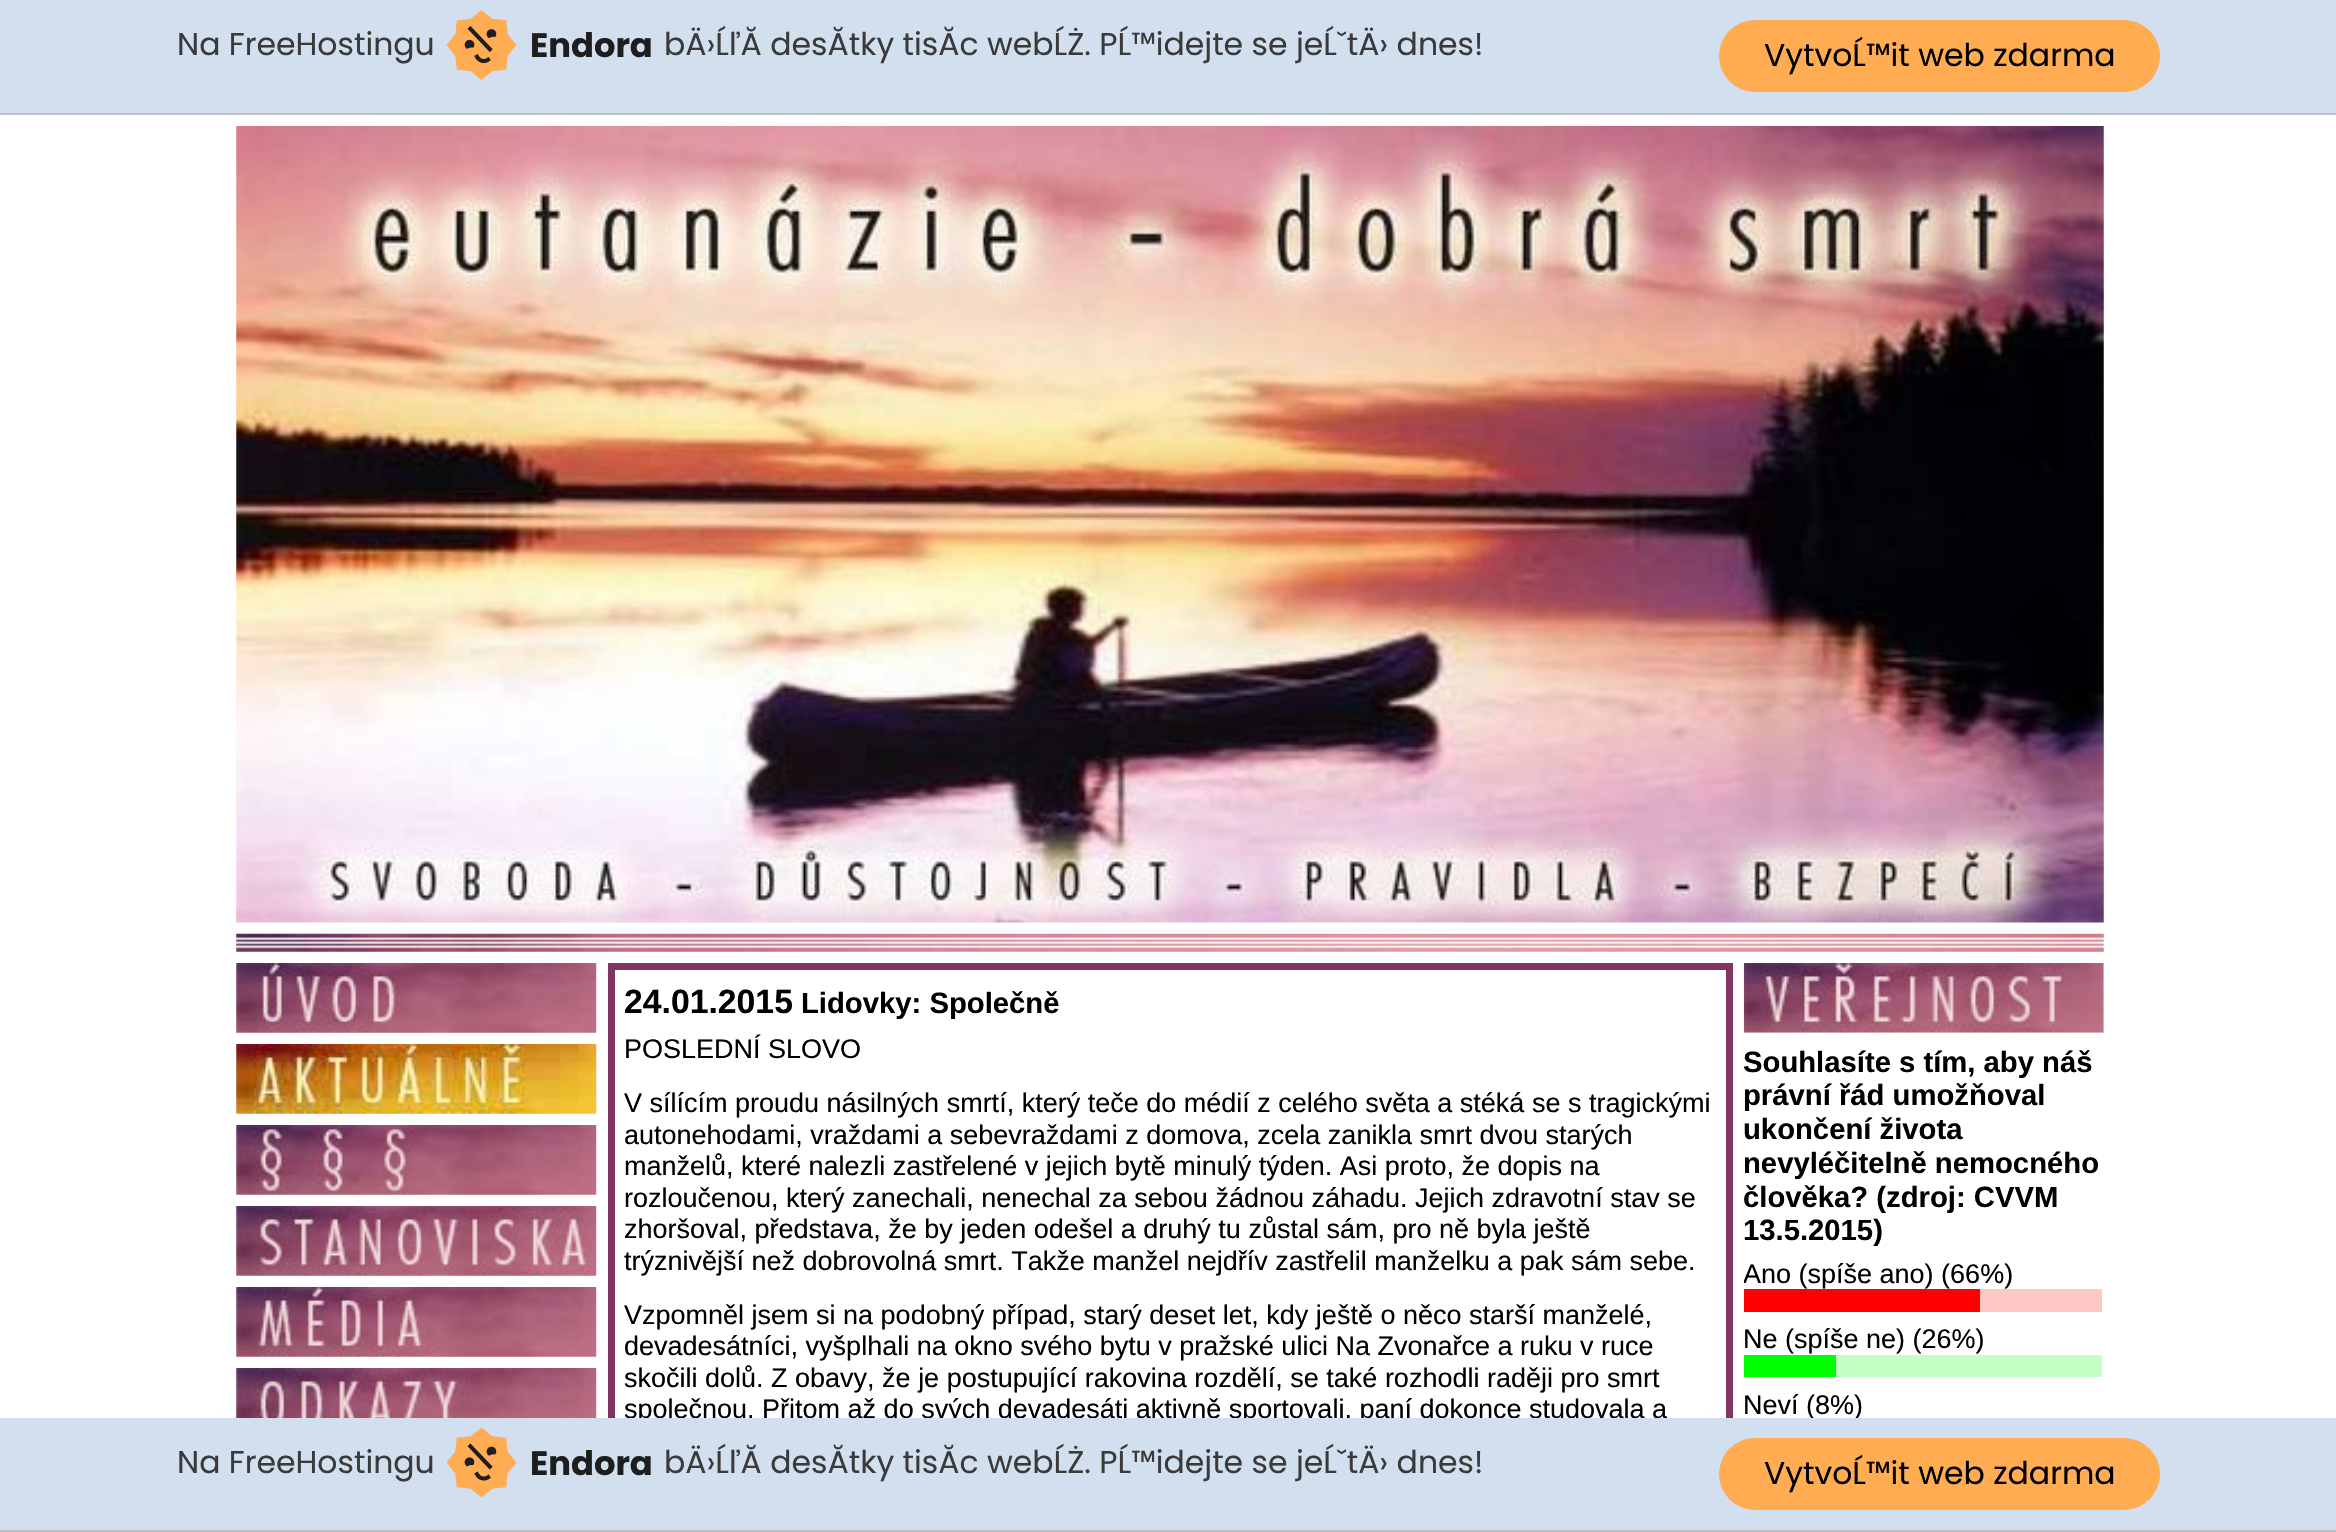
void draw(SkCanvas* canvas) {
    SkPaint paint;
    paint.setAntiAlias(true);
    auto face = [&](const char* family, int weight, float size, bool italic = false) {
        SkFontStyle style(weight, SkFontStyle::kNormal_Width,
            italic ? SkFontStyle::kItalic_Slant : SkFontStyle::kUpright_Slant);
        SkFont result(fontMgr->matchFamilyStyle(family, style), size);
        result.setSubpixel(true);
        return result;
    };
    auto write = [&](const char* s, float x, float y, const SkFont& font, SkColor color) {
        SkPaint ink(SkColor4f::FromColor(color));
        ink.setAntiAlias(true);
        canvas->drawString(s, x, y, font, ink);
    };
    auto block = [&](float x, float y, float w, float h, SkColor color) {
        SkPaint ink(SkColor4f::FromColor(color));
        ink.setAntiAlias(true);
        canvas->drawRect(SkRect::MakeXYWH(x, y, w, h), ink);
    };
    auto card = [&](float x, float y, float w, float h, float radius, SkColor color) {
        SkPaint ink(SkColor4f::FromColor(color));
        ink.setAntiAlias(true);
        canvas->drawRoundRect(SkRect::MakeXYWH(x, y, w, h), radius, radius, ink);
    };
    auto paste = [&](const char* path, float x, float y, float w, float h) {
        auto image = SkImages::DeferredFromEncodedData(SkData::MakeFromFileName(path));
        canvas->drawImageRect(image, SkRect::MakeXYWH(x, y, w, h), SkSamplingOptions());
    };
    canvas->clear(SK_ColorWHITE);
    block(0, 0, 2336, 113, SkColorSetRGB(210, 223, 239));
    block(0, 113, 2336, 2, SkColorSetRGB(190, 191, 196));
    auto kFont1 = face("Poppins", 400, 31.5f);
    write("Na FreeHostingu", 177, 55, kFont1, SkColorSetRGB(58, 58, 58));
    paste("pic1.png", 446, 10, 71, 70);
    auto kFont2 = face("Poppins", 700, 33.75f);
    write("Endora", 530, 57, kFont2, SkColorSetRGB(30, 30, 30));
    write("bÄ›ĹľĂ desĂtky tisĂc webĹŻ. PĹ™idejte se jeĹˇtÄ› dnes!", 664, 55, kFont1, SkColorSetRGB(58, 58, 58));
    card(1719, 20, 441, 72, 36, SkColorSetRGB(255, 172, 82));
    write("VytvoĹ™it web zdarma", 1764, 66, kFont1, SK_ColorBLACK);
    paste("pic2.png", 236, 126, 1868, 797);
    paste("pic3.png", 236, 933, 1868, 19);
    paste("pic4.png", 236, 963, 361, 70);
    paste("pic5.png", 236, 1044, 361, 70);
    paste("pic6.png", 236, 1125, 361, 70);
    paste("pic7.png", 236, 1206, 361, 70);
    paste("pic8.png", 236, 1287, 361, 70);
    paste("pic9.png", 236, 1368, 361, 50);
    paint.setStyle(SkPaint::kStroke_Style);
    paint.setStrokeWidth(7);
    paint.setColor(SkColorSetRGB(128, 54, 99));
    canvas->drawRect(SkRect::MakeXYWH(611.5f, 966.5f, 1118, 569), paint);
    auto kFont3 = face("Liberation Sans", 700, 33.75f);
    write("24.01.2015", 624, 1013, kFont3, SK_ColorBLACK);
    auto kFont4 = face("Liberation Sans", 700, 29.25f);
    write("Lidovky: Společně", 801, 1013, kFont4, SK_ColorBLACK);
    auto kFont5 = face("Liberation Sans", 400, 27);
    write("POSLEDNÍ SLOVO", 624, 1058, kFont5, SK_ColorBLACK);
    write("V sílícím proudu násilných smrtí, který teče do médií z celého světa a stéká se s tragickými", 624, 1112, kFont5, SK_ColorBLACK);
    write("autonehodami, vraždami a sebevraždami z domova, zcela zanikla smrt dvou starých", 624, 1144, kFont5, SK_ColorBLACK);
    write("manželů, které nalezli zastřelené v jejich bytě minulý týden. Asi proto, že dopis na", 624, 1175, kFont5, SK_ColorBLACK);
    write("rozloučenou, který zanechali, nenechal za sebou žádnou záhadu. Jejich zdravotní stav se", 624, 1207, kFont5, SK_ColorBLACK);
    write("zhoršoval, představa, že by jeden odešel a druhý tu zůstal sám, pro ně byla ještě", 624, 1238, kFont5, SK_ColorBLACK);
    write("trýznivější než dobrovolná smrt. Takže manžel nejdřív zastřelil manželku a pak sám sebe.", 624, 1270, kFont5, SK_ColorBLACK);
    write("Vzpomněl jsem si na podobný případ, starý deset let, kdy ještě o něco starší manželé,", 624, 1324, kFont5, SK_ColorBLACK);
    write("devadesátníci, vyšplhali na okno svého bytu v pražské ulici Na Zvonařce a ruku v ruce", 624, 1355, kFont5, SK_ColorBLACK);
    write("skočili dolů. Z obavy, že je postupující rakovina rozdělí, se také rozhodli raději pro smrt", 624, 1387, kFont5, SK_ColorBLACK);
    write("společnou. Přitom až do svých devadesáti aktivně sportovali, paní dokonce studovala a", 624, 1418, kFont5, SK_ColorBLACK);
    paste("pic10.png", 1743, 963, 361, 70);
    write("Souhlasíte s tím, aby náš", 1743, 1072, kFont4, SK_ColorBLACK);
    write("právní řád umožňoval", 1743, 1105, kFont4, SK_ColorBLACK);
    write("ukončení života", 1743, 1139, kFont4, SK_ColorBLACK);
    write("nevyléčitelně nemocného", 1743, 1173, kFont4, SK_ColorBLACK);
    canvas->save();
    canvas->clipRect(SkRect::MakeXYWH(1744, 963, 360, 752));
    write("člověka? (zdroj: CVVM", 1743, 1207, kFont4, SK_ColorBLACK);
    canvas->restore();
    write("13.5.2015)", 1743, 1240, kFont4, SK_ColorBLACK);
    canvas->save();
    canvas->clipRect(SkRect::MakeXYWH(1744, 963, 360, 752));
    write("Ano (spíše ano) (66%)", 1743, 1283, kFont5, SK_ColorBLACK);
    canvas->restore();
    block(1744, 1289, 236, 23, SkColorSetRGB(255, 0, 0));
    block(1980, 1289, 122, 23, SkColorSetRGB(255, 198, 198));
    write("Ne (spíše ne) (26%)", 1743, 1348, kFont5, SK_ColorBLACK);
    block(1744, 1355, 92, 22, SkColorSetRGB(0, 255, 0));
    block(1836, 1355, 266, 22, SkColorSetRGB(198, 255, 198));
    write("Neví (8%)", 1743, 1414, kFont5, SK_ColorBLACK);
    block(0, 1418, 2336, 112, SkColorSetRGB(210, 223, 239));
    block(0, 1530, 2336, 2, SkColorSetRGB(190, 191, 196));
    write("Na FreeHostingu", 177, 1473, kFont1, SkColorSetRGB(58, 58, 58));
    paste("pic11.png", 446, 1427, 71, 71);
    write("Endora", 530, 1475, kFont2, SkColorSetRGB(30, 30, 30));
    write("bÄ›ĹľĂ desĂtky tisĂc webĹŻ. PĹ™idejte se jeĹˇtÄ› dnes!", 664, 1473, kFont1, SkColorSetRGB(58, 58, 58));
    card(1719, 1438, 441, 72, 36, SkColorSetRGB(255, 172, 82));
    write("VytvoĹ™it web zdarma", 1764, 1484, kFont1, SK_ColorBLACK);
}
